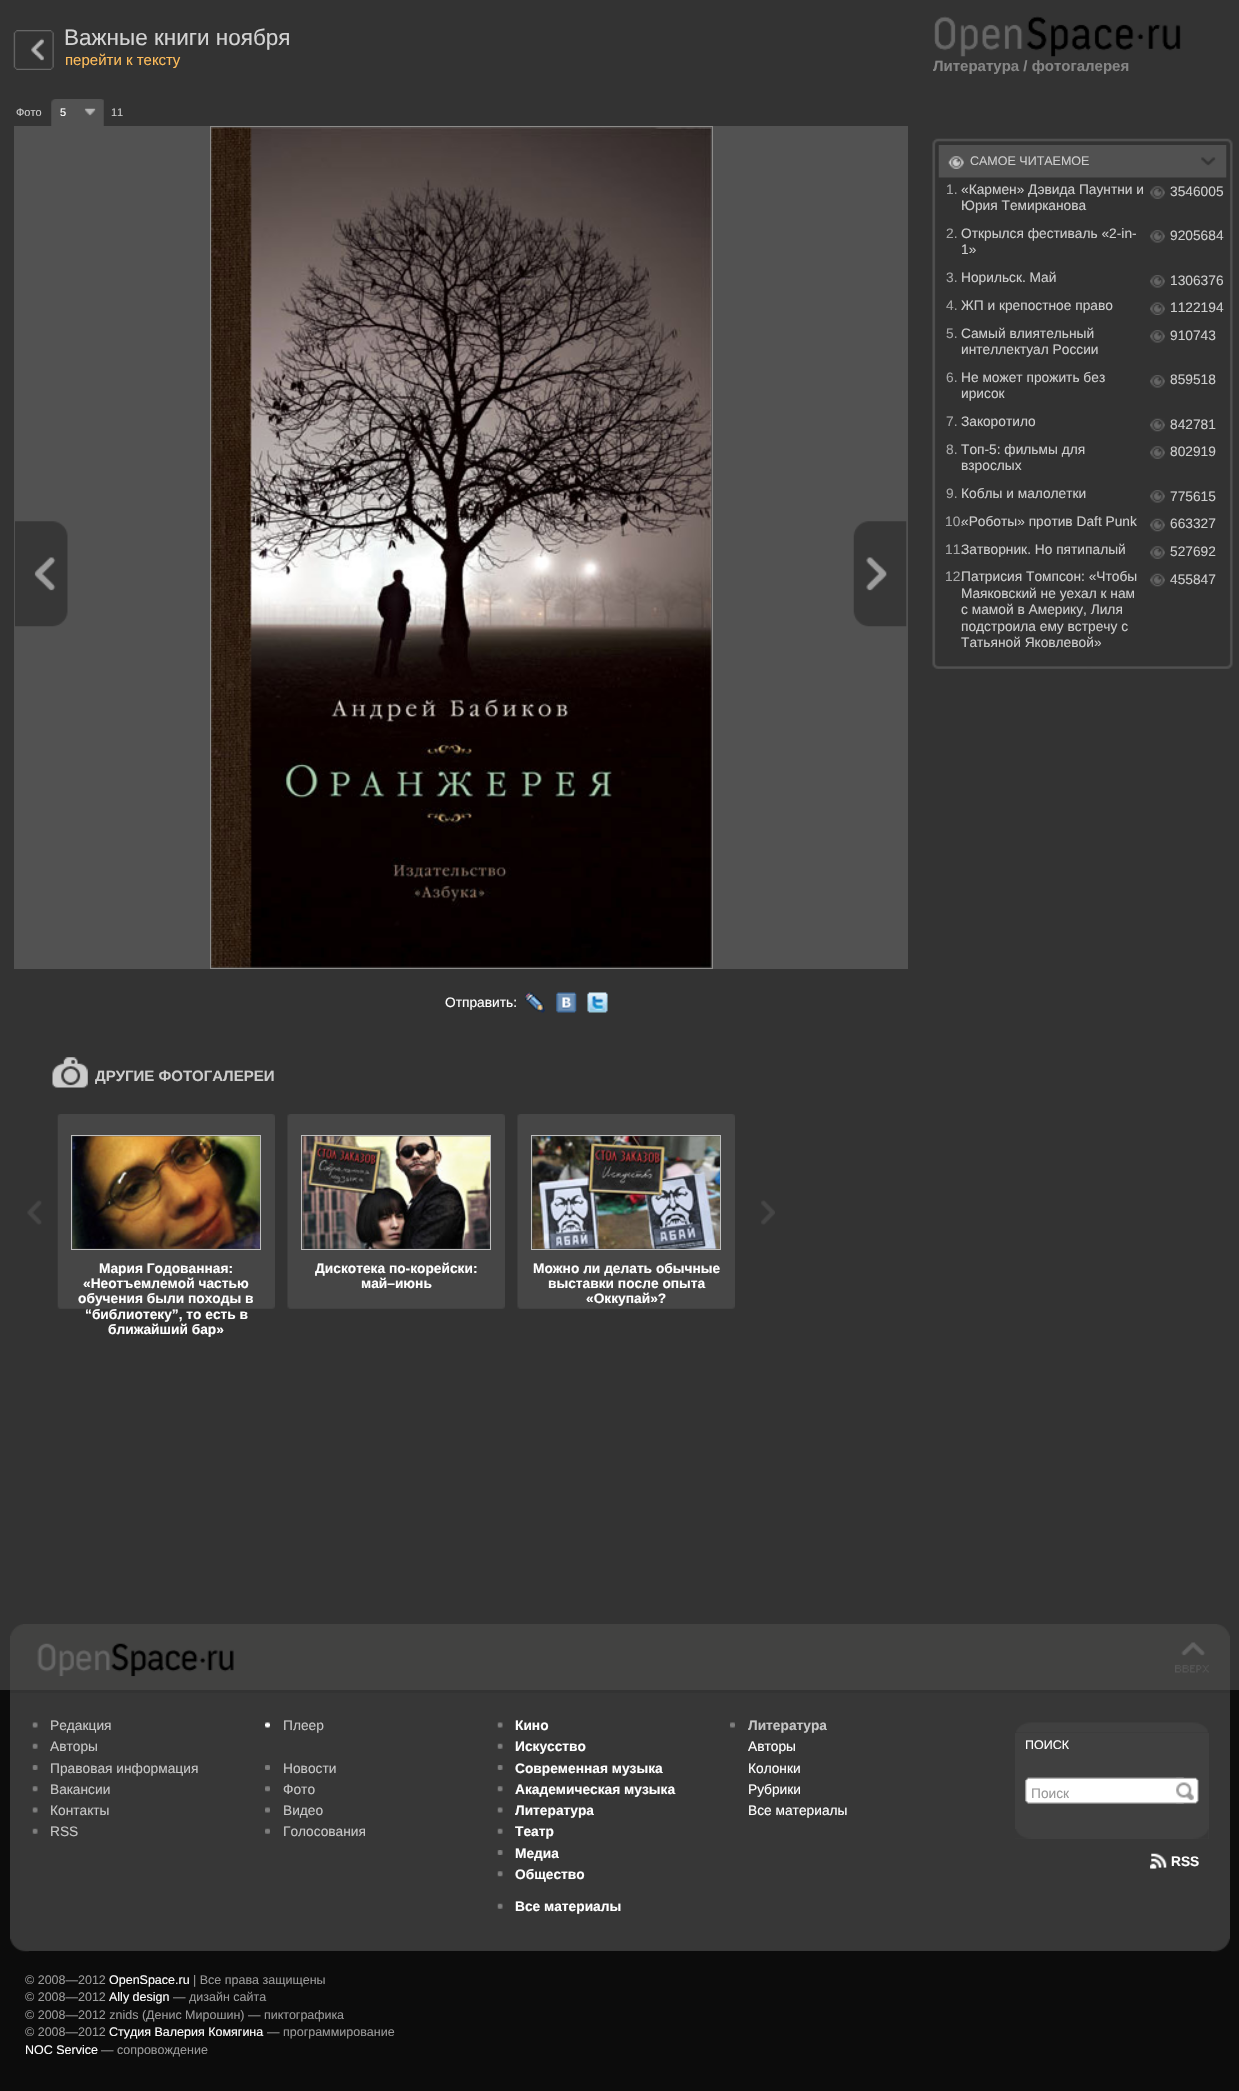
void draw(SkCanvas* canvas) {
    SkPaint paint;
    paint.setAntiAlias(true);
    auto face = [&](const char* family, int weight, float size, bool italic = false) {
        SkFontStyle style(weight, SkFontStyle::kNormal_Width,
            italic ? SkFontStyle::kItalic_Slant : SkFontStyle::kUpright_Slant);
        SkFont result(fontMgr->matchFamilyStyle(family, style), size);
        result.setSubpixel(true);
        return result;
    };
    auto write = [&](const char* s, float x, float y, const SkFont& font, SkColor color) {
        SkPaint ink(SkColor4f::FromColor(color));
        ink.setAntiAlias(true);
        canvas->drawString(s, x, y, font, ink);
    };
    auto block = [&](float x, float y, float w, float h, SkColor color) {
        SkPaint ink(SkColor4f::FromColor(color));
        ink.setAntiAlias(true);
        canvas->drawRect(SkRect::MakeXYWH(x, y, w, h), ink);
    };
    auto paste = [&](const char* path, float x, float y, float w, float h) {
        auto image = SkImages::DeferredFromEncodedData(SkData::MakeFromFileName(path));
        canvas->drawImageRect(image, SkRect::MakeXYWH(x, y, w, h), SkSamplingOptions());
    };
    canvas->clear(SkColorSetRGB(51, 51, 51));
    paste("pic1.png", 13, 30, 41, 40);
    auto kFont1 = face("Liberation Sans", 400, 22.5f);
    write("Важные книги ноября", 64, 45, kFont1, SkColorSetRGB(211, 211, 211));
    auto kFont2 = face("Liberation Sans", 400, 15);
    write("перейти к тексту", 65, 65, kFont2, SkColorSetRGB(255, 189, 91));
    auto kFont3 = face("Liberation Sans", 400, 11);
    write("Фото", 16, 116, kFont3, SkColorSetRGB(204, 204, 204));
    paste("pic2.png", 51, 99, 53, 27);
    write("5", 60, 116, kFont3, SK_ColorWHITE);
    write("11", 111, 116, kFont3, SkColorSetRGB(204, 204, 204));
    block(14, 126, 894, 843, SkColorSetRGB(82, 82, 82));
    paint.setStyle(SkPaint::kStroke_Style);
    paint.setStrokeWidth(1);
    paint.setColor(SkColorSetRGB(141, 140, 138));
    canvas->drawRect(SkRect::MakeXYWH(210.5f, 126.5f, 502, 842), paint);
    paste("pic3.png", 15, 521, 53, 106);
    paste("pic4.png", 211, 127, 501, 841);
    paste("pic5.png", 853, 521, 54, 106);
    auto kFont4 = face("Liberation Sans", 400, 13.75f);
    write("Отправить:", 445, 1007, kFont4, SK_ColorWHITE);
    paste("pic6.png", 525, 992, 20, 21);
    paste("pic7.png", 556, 992, 21, 21);
    paste("pic8.png", 587, 992, 21, 21);
    paste("pic9.png", 52, 1057, 36, 31);
    paste("pic10.png", 65, 1057, 23, 29);
    auto kFont5 = face("Liberation Sans", 700, 15);
    write("ДРУГИЕ ФОТОГАЛЕРЕИ", 95, 1081, kFont5, SkColorSetRGB(204, 204, 204));
    paste("pic11.png", 27, 1200, 15, 25);
    paste("pic12.png", 761, 1200, 14, 25);
    paste("pic13.png", 57, 1114, 218, 195);
    paint.setColor(SkColorSetRGB(191, 191, 191));
    canvas->drawRect(SkRect::MakeXYWH(71.5f, 1135.5f, 189, 114), paint);
    paste("pic14.png", 72, 1136, 188, 113);
    auto kFont6 = face("Liberation Sans", 700, 13.75f);
    write("Мария Годованная:", 99, 1273, kFont6, SK_ColorWHITE);
    write("«Неотъемлемой частью", 83, 1288, kFont6, SK_ColorWHITE);
    write("обучения были походы в", 78, 1303, kFont6, SK_ColorWHITE);
    write("“библиотеку”, то есть в", 85, 1319, kFont6, SK_ColorWHITE);
    write("ближайший бар»", 108, 1334, kFont6, SK_ColorWHITE);
    paste("pic15.png", 287, 1114, 218, 195);
    canvas->drawRect(SkRect::MakeXYWH(301.5f, 1135.5f, 189, 114), paint);
    paste("pic16.png", 302, 1136, 188, 113);
    write("Дискотека по-корейски:", 315, 1273, kFont6, SK_ColorWHITE);
    write("май–июнь", 361, 1288, kFont6, SK_ColorWHITE);
    paste("pic15.png", 517, 1114, 218, 195);
    canvas->drawRect(SkRect::MakeXYWH(531.5f, 1135.5f, 189, 114), paint);
    paste("pic17.png", 532, 1136, 188, 113);
    write("Можно ли делать обычные", 533, 1273, kFont6, SK_ColorWHITE);
    write("выставки после опыта", 548, 1288, kFont6, SK_ColorWHITE);
    write("«Оккупай»?", 586, 1303, kFont6, SK_ColorWHITE);
    paste("pic18.png", 934, 16, 247, 41);
    write("Литература / фотогалерея", 933, 71, kFont5, SkColorSetRGB(133, 133, 133));
    paste("pic19.png", 932, 138, 301, 7);
    paste("pic20.png", 932, 145, 301, 524);
    paste("pic21.png", 938, 145, 289, 33);
    auto kFont7 = face("Liberation Sans", 400, 12.5f);
    write("САМОЕ ЧИТАЕМОЕ", 970, 165, kFont7, SkColorSetRGB(204, 204, 204));
    write("1.", 946, 194, kFont4, SkColorSetRGB(166, 166, 167));
    write("«Кармен» Дэвида Паунтни и", 961, 194, kFont4, SkColorSetRGB(204, 204, 204));
    write("Юрия Темирканова", 961, 210, kFont4, SkColorSetRGB(204, 204, 204));
    paste("pic22.png", 1150, 186, 15, 13);
    write("3546005", 1170, 196, kFont4, SkColorSetRGB(204, 204, 204));
    write("2.", 946, 238, kFont4, SkColorSetRGB(166, 166, 167));
    write("Открылся фестиваль «2-in-", 961, 238, kFont4, SkColorSetRGB(204, 204, 204));
    write("1»", 961, 254, kFont4, SkColorSetRGB(204, 204, 204));
    paste("pic23.png", 1150, 230, 15, 13);
    write("9205684", 1170, 240, kFont4, SkColorSetRGB(204, 204, 204));
    write("3.", 946, 282, kFont4, SkColorSetRGB(166, 166, 167));
    write("Норильск. Май", 961, 282, kFont4, SkColorSetRGB(204, 204, 204));
    paste("pic23.png", 1150, 275, 15, 13);
    write("1306376", 1170, 285, kFont4, SkColorSetRGB(204, 204, 204));
    write("4.", 946, 310, kFont4, SkColorSetRGB(166, 166, 167));
    write("ЖП и крепостное право", 961, 310, kFont4, SkColorSetRGB(204, 204, 204));
    paste("pic24.png", 1150, 302, 15, 13);
    write("1122194", 1170, 312, kFont4, SkColorSetRGB(204, 204, 204));
    write("5.", 946, 338, kFont4, SkColorSetRGB(166, 166, 167));
    write("Самый влиятельный", 961, 338, kFont4, SkColorSetRGB(204, 204, 204));
    write("интеллектуал России", 961, 354, kFont4, SkColorSetRGB(204, 204, 204));
    paste("pic23.png", 1150, 330, 15, 13);
    write("910743", 1170, 340, kFont4, SkColorSetRGB(204, 204, 204));
    write("6.", 946, 382, kFont4, SkColorSetRGB(166, 166, 167));
    write("Не может прожить без", 961, 382, kFont4, SkColorSetRGB(204, 204, 204));
    write("ирисок", 961, 398, kFont4, SkColorSetRGB(204, 204, 204));
    paste("pic23.png", 1150, 375, 15, 13);
    write("859518", 1170, 384, kFont4, SkColorSetRGB(204, 204, 204));
    write("7.", 946, 426, kFont4, SkColorSetRGB(166, 166, 167));
    write("Закоротило", 961, 426, kFont4, SkColorSetRGB(204, 204, 204));
    paste("pic25.png", 1150, 418, 15, 14);
    write("842781", 1170, 429, kFont4, SkColorSetRGB(204, 204, 204));
    write("8.", 946, 454, kFont4, SkColorSetRGB(166, 166, 167));
    write("Топ-5: фильмы для", 961, 454, kFont4, SkColorSetRGB(204, 204, 204));
    write("взрослых", 961, 470, kFont4, SkColorSetRGB(204, 204, 204));
    paste("pic22.png", 1150, 446, 15, 13);
    write("802919", 1170, 456, kFont4, SkColorSetRGB(204, 204, 204));
    write("9.", 946, 498, kFont4, SkColorSetRGB(166, 166, 167));
    write("Коблы и малолетки", 961, 498, kFont4, SkColorSetRGB(204, 204, 204));
    paste("pic23.png", 1150, 490, 15, 13);
    write("775615", 1170, 501, kFont4, SkColorSetRGB(204, 204, 204));
    write("10.", 945, 526, kFont4, SkColorSetRGB(166, 166, 167));
    write("«Роботы» против Daft Punk", 961, 526, kFont4, SkColorSetRGB(204, 204, 204));
    paste("pic25.png", 1150, 518, 15, 14);
    write("663327", 1170, 528, kFont4, SkColorSetRGB(204, 204, 204));
    write("11.", 945, 554, kFont4, SkColorSetRGB(166, 166, 167));
    write("Затворник. Но пятипалый", 961, 554, kFont4, SkColorSetRGB(204, 204, 204));
    paste("pic22.png", 1150, 546, 15, 13);
    write("527692", 1170, 556, kFont4, SkColorSetRGB(204, 204, 204));
    write("12.", 945, 581, kFont4, SkColorSetRGB(166, 166, 167));
    write("Патрисия Томпсон: «Чтобы", 961, 581, kFont4, SkColorSetRGB(204, 204, 204));
    write("Маяковский не уехал к нам", 961, 598, kFont4, SkColorSetRGB(204, 204, 204));
    write("с мамой в Америку, Лиля", 961, 614, kFont4, SkColorSetRGB(204, 204, 204));
    write("подстроила ему встречу с", 961, 631, kFont4, SkColorSetRGB(204, 204, 204));
    write("Татьяной Яковлевой»", 961, 647, kFont4, SkColorSetRGB(204, 204, 204));
    paste("pic25.png", 1150, 573, 15, 14);
    write("455847", 1170, 584, kFont4, SkColorSetRGB(204, 204, 204));
    block(10, 1624, 1220, 66, SkColorSetRGB(66, 66, 65));
    paste("pic26.png", 10, 1624, 13, 12);
    paste("pic27.png", 1217, 1624, 13, 12);
    paste("pic28.png", 37, 1643, 197, 34);
    paste("pic29.png", 1175, 1642, 34, 31);
    block(0, 1951, 1239, 140, SkColorSetRGB(12, 12, 12));
    block(10, 1693, 1220, 258, SkColorSetRGB(55, 55, 55));
    paste("pic30.png", 1211, 1938, 19, 14);
    block(1230, 1690, 9, 261, SkColorSetRGB(12, 12, 12));
    block(0, 1690, 10, 261, SkColorSetRGB(12, 12, 12));
    paste("pic31.png", 10, 1938, 19, 14);
    paste("pic32.png", 32, 1722, 6, 6);
    write("Редакция", 50, 1730, kFont4, SkColorSetRGB(198, 198, 198));
    paste("pic33.png", 32, 1743, 6, 6);
    write("Авторы", 50, 1751, kFont4, SkColorSetRGB(198, 198, 198));
    paste("pic34.png", 32, 1765, 6, 5);
    write("Правовая информация", 50, 1773, kFont4, SkColorSetRGB(198, 198, 198));
    paste("pic35.png", 32, 1786, 6, 6);
    write("Вакансии", 50, 1794, kFont4, SkColorSetRGB(198, 198, 198));
    paste("pic32.png", 32, 1807, 6, 6);
    write("Контакты", 50, 1815, kFont4, SkColorSetRGB(198, 198, 198));
    paste("pic33.png", 32, 1828, 6, 6);
    write("RSS", 50, 1836, kFont4, SkColorSetRGB(198, 198, 198));
    paste("pic36.png", 265, 1722, 5, 6);
    write("Плеер", 283, 1730, kFont4, SkColorSetRGB(198, 198, 198));
    paste("pic37.png", 265, 1765, 5, 5);
    write("Новости", 283, 1773, kFont4, SkColorSetRGB(198, 198, 198));
    paste("pic38.png", 265, 1786, 5, 6);
    write("Фото", 283, 1794, kFont4, SkColorSetRGB(198, 198, 198));
    paste("pic39.png", 265, 1807, 5, 6);
    write("Видео", 283, 1815, kFont4, SkColorSetRGB(198, 198, 198));
    paste("pic40.png", 265, 1828, 5, 6);
    write("Голосования", 283, 1836, kFont4, SkColorSetRGB(198, 198, 198));
    paste("pic32.png", 497, 1722, 6, 6);
    write("Кино", 515, 1730, kFont6, SK_ColorWHITE);
    paste("pic33.png", 497, 1743, 6, 6);
    write("Искусство", 515, 1751, kFont6, SK_ColorWHITE);
    paste("pic34.png", 497, 1765, 6, 5);
    write("Современная музыка", 515, 1773, kFont6, SK_ColorWHITE);
    paste("pic35.png", 497, 1786, 6, 6);
    write("Академическая музыка", 515, 1794, kFont6, SK_ColorWHITE);
    paste("pic32.png", 497, 1807, 6, 6);
    write("Литература", 515, 1815, kFont6, SK_ColorWHITE);
    paste("pic33.png", 497, 1828, 6, 6);
    write("Театр", 515, 1836, kFont6, SK_ColorWHITE);
    paste("pic34.png", 497, 1850, 6, 5);
    write("Медиа", 515, 1858, kFont6, SK_ColorWHITE);
    paste("pic35.png", 497, 1871, 6, 6);
    write("Общество", 515, 1879, kFont6, SK_ColorWHITE);
    paste("pic33.png", 497, 1903, 6, 6);
    write("Все материалы", 515, 1911, kFont6, SK_ColorWHITE);
    paste("pic39.png", 730, 1722, 5, 6);
    write("Литература", 748, 1730, kFont6, SkColorSetRGB(198, 198, 198));
    write("Авторы", 748, 1751, kFont4, SK_ColorWHITE);
    write("Колонки", 748, 1773, kFont4, SK_ColorWHITE);
    write("Рубрики", 748, 1794, kFont4, SK_ColorWHITE);
    write("Все материалы", 748, 1815, kFont4, SK_ColorWHITE);
    paste("pic41.png", 1016, 1722, 192, 11);
    block(1015, 1733, 194, 106, SkColorSetRGB(64, 64, 64));
    paste("pic42.png", 1015, 1829, 194, 10);
    write("ПОИСК", 1025, 1749, kFont7, SK_ColorWHITE);
    paste("pic43.png", 1025, 1777, 159, 27);
    write("Поиск", 1031, 1798, kFont4, SkColorSetRGB(153, 153, 153));
    paste("pic44.png", 1176, 1777, 23, 27);
    paste("pic45.png", 1150, 1853, 17, 16);
    write("RSS", 1171, 1866, kFont6, SK_ColorWHITE);
    write("© 2008—2012", 25, 1984, kFont7, SkColorSetRGB(153, 153, 153));
    write("OpenSpace.ru", 109, 1984, kFont7, SK_ColorWHITE);
    write("| Все права защищены", 193, 1984, kFont7, SkColorSetRGB(153, 153, 153));
    write("© 2008—2012", 25, 2001, kFont7, SkColorSetRGB(153, 153, 153));
    write("Ally design", 109, 2001, kFont7, SK_ColorWHITE);
    write("— дизайн сайта", 173, 2001, kFont7, SkColorSetRGB(153, 153, 153));
    write("© 2008—2012 znids (Денис Мирошин) — пиктографика", 25, 2019, kFont7, SkColorSetRGB(153, 153, 153));
    write("© 2008—2012", 25, 2036, kFont7, SkColorSetRGB(153, 153, 153));
    write("Студия Валерия Комягина", 109, 2036, kFont7, SK_ColorWHITE);
    write("— программирование", 267, 2036, kFont7, SkColorSetRGB(153, 153, 153));
    write("NOC Service", 25, 2054, kFont7, SK_ColorWHITE);
    write("— сопровождение", 101, 2054, kFont7, SkColorSetRGB(153, 153, 153));
}
